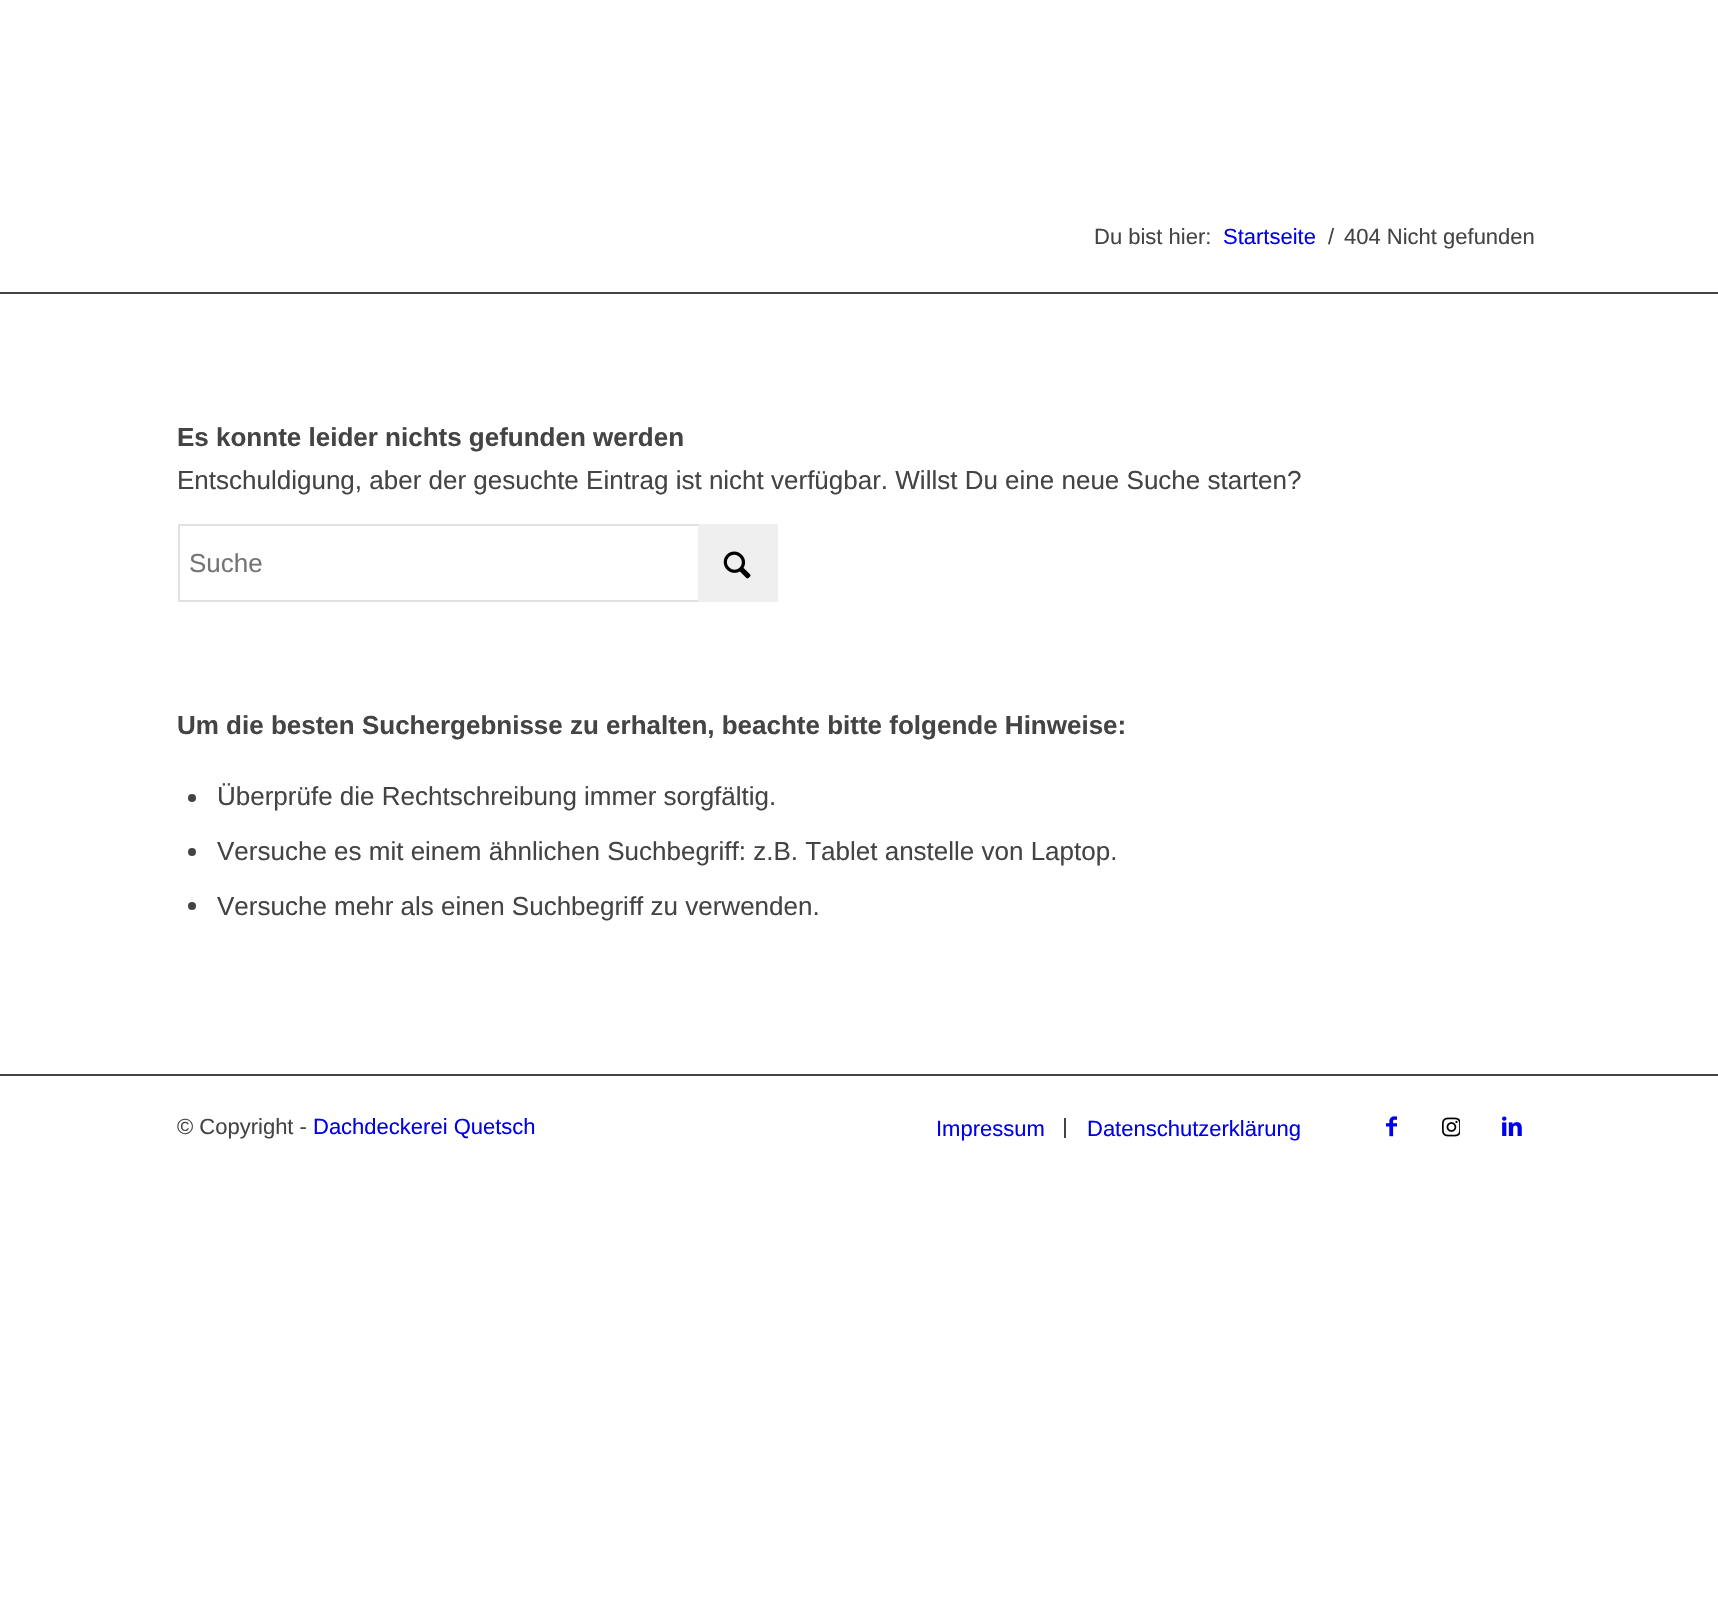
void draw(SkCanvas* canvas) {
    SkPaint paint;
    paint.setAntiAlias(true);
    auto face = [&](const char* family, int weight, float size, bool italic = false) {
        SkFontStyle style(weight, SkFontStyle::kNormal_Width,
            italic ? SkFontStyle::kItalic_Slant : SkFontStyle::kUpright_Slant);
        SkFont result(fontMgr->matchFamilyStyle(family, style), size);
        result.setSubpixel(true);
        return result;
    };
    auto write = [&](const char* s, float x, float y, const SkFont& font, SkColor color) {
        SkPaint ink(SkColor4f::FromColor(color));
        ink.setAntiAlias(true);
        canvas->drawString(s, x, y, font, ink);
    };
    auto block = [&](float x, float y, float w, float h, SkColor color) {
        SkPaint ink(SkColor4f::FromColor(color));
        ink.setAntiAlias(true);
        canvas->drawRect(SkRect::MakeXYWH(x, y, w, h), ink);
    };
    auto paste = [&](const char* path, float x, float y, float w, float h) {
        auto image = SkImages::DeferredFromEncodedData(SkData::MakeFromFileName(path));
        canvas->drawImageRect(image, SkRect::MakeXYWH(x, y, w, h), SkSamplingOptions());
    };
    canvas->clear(SK_ColorWHITE);
    auto kFont1 = face("Liberation Sans", 400, 22);
    write("Du bist hier:", 1094, 244, kFont1, SkColorSetRGB(68, 68, 68));
    write("Startseite", 1223, 244, kFont1, SkColorSetRGB(0, 0, 238));
    write("/", 1328, 244, kFont1, SkColorSetRGB(68, 68, 68));
    write("404 Nicht gefunden", 1344, 244, kFont1, SkColorSetRGB(68, 68, 68));
    block(0, 292, 1718, 2, SkColorSetRGB(68, 68, 68));
    auto kFont2 = face("Liberation Sans", 700, 26);
    write("Es konnte leider nichts gefunden werden", 177, 446, kFont2, SkColorSetRGB(68, 68, 68));
    auto kFont3 = face("Liberation Sans", 400, 26);
    write("Entschuldigung, aber der gesuchte Eintrag ist nicht verfügbar. Willst Du eine neue Suche starten?", 177, 489, kFont3, SkColorSetRGB(68, 68, 68));
    paint.setStyle(SkPaint::kStroke_Style);
    paint.setStrokeWidth(2);
    paint.setColor(SkColorSetRGB(225, 225, 225));
    canvas->drawRect(SkRect::MakeXYWH(179, 525, 598, 76), paint);
    block(698, 524, 80, 78, SkColorSetRGB(239, 239, 239));
    write("Suche", 189, 572, kFont3, SkColorSetRGB(117, 117, 117));
    paste("pic1.png", 723, 551, 28, 28);
    write("Um die besten Suchergebnisse zu erhalten, beachte bitte folgende Hinweise:", 177, 734, kFont2, SkColorSetRGB(68, 68, 68));
    paint.setStyle(SkPaint::kFill_Style);
    paint.setColor(SkColorSetRGB(68, 68, 68));
    canvas->drawCircle(192, 798, 4, paint);
    write("Überprüfe die Rechtschreibung immer sorgfältig.", 217, 805, kFont3, SkColorSetRGB(68, 68, 68));
    canvas->drawCircle(192, 852, 4, paint);
    write("Versuche es mit einem ähnlichen Suchbegriff: z.B. Tablet anstelle von Laptop.", 217, 860, kFont3, SkColorSetRGB(68, 68, 68));
    canvas->drawCircle(192, 906, 4, paint);
    write("Versuche mehr als einen Suchbegriff zu verwenden.", 217, 915, kFont3, SkColorSetRGB(68, 68, 68));
    block(0, 1074, 1718, 2, SkColorSetRGB(68, 68, 68));
    write("© Copyright -", 177, 1134, kFont1, SkColorSetRGB(68, 68, 68));
    write("Dachdeckerei Quetsch", 313, 1134, kFont1, SkColorSetRGB(0, 0, 238));
    write("Impressum", 936, 1136, kFont1, SkColorSetRGB(0, 0, 238));
    block(1064, 1118, 2, 20, SkColorSetRGB(68, 68, 68));
    write("Datenschutzerklärung", 1087, 1136, kFont1, SkColorSetRGB(0, 0, 238));
    paste("pic2.png", 1386, 1116, 11, 21);
    paste("pic3.png", 1442, 1117, 18, 20);
    paste("pic4.png", 1502, 1116, 20, 20);
}
